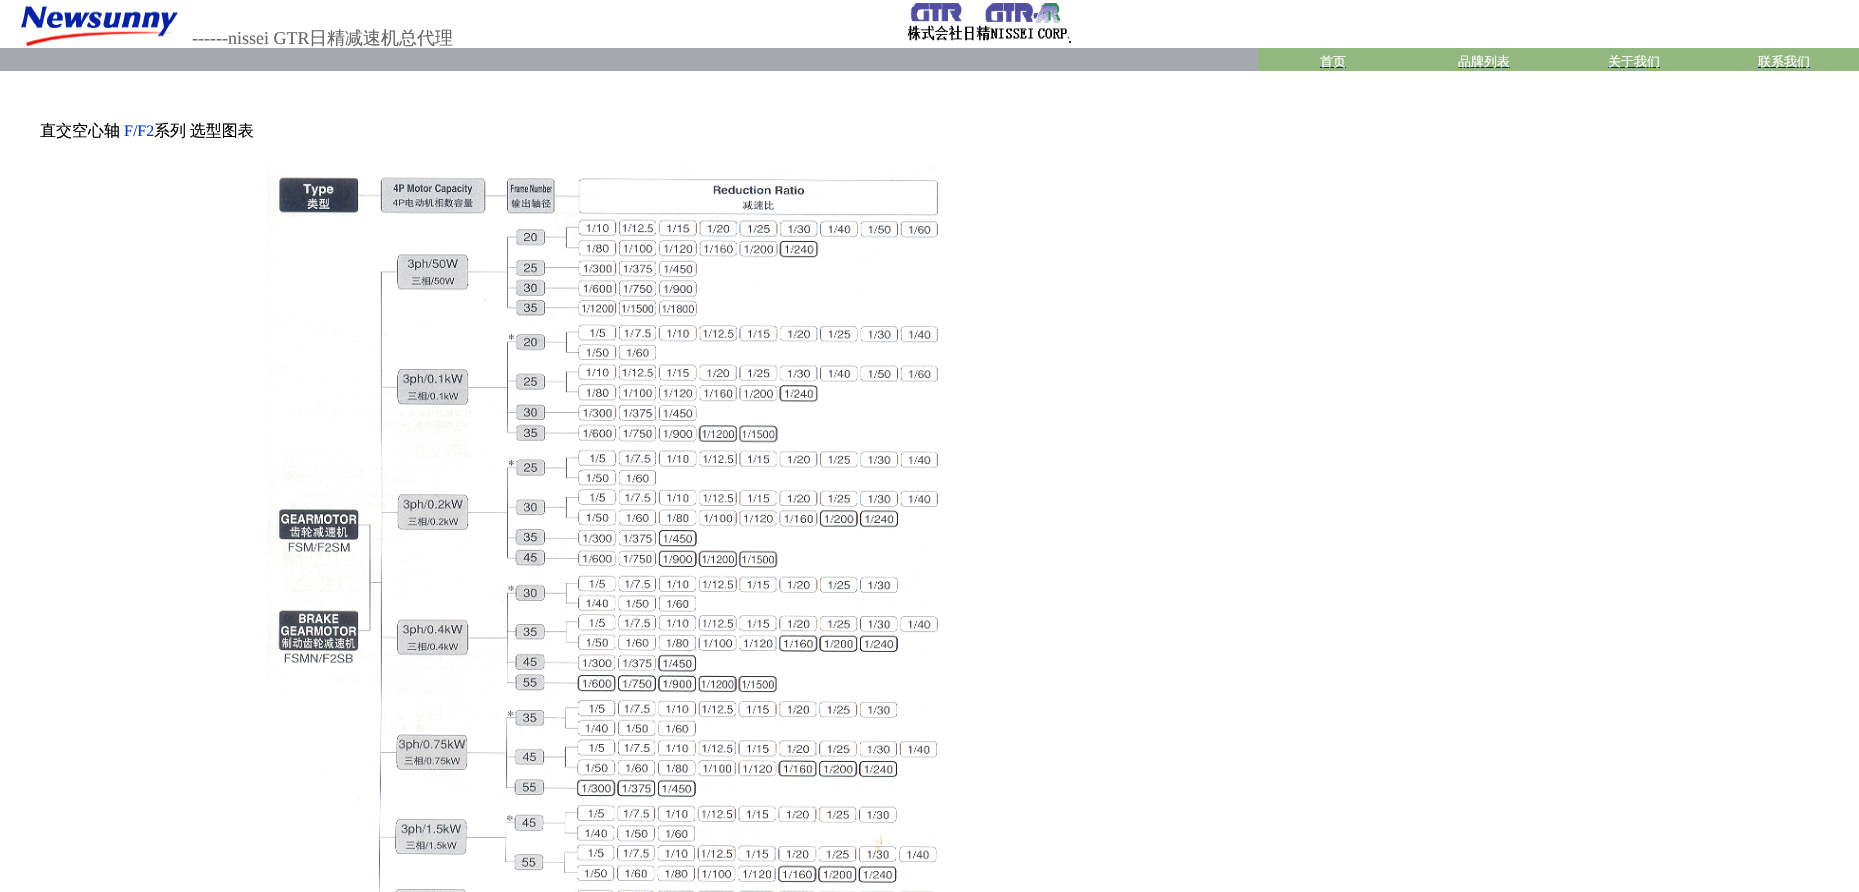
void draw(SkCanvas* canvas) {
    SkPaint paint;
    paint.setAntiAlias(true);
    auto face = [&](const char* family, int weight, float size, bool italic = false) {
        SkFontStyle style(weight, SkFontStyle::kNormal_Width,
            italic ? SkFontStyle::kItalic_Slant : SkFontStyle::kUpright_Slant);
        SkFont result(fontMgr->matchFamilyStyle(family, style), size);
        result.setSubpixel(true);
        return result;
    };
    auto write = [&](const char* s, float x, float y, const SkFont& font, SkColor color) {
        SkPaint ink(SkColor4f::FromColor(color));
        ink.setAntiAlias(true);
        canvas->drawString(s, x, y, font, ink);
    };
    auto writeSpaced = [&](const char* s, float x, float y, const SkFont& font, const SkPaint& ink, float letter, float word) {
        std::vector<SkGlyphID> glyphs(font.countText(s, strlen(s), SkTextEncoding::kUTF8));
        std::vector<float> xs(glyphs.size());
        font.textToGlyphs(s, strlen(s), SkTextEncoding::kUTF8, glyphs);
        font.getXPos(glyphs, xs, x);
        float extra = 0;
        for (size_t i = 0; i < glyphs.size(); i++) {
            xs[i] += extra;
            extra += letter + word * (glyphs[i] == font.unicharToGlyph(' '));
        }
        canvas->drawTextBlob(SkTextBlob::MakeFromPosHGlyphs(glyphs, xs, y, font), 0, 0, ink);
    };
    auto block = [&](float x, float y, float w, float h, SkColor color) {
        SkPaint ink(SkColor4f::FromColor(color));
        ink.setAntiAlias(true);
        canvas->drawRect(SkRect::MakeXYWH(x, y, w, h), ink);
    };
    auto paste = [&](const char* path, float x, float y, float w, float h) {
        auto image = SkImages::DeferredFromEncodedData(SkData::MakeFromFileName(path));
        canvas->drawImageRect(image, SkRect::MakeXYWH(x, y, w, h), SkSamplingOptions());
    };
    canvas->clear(SK_ColorWHITE);
    paste("pic1.png", 16, 0, 162, 47);
    auto kFont1 = face("Liberation Serif", 400, 18);
    write("------nissei GTR", 192, 44, kFont1, SkColorSetRGB(102, 102, 102));
    auto kFont2 = face("WenQuanYi Zen Hei", 500, 18);
    write("日精减速机总代理", 309, 44, kFont2, SkColorSetRGB(102, 102, 102));
    paste("pic2.png", 908, 3, 163, 40);
    block(0, 48, 1258, 23, SkColorSetRGB(165, 169, 175));
    block(1258, 48, 601, 23, SkColorSetRGB(146, 183, 127));
    block(1320, 67, 26, 1, SkColorSetRGB(0, 0, 238));
    auto kFont3 = face("WenQuanYi Zen Hei", 500, 13);
    write("首页", 1320, 66, kFont3, SK_ColorWHITE);
    block(1458, 67, 52, 1, SkColorSetRGB(0, 0, 238));
    write("品牌列表", 1458, 66, kFont3, SK_ColorWHITE);
    block(1608, 67, 52, 1, SkColorSetRGB(0, 0, 238));
    write("关于我们", 1608, 66, kFont3, SK_ColorWHITE);
    block(1758, 67, 52, 1, SkColorSetRGB(0, 0, 238));
    write("联系我们", 1758, 66, kFont3, SK_ColorWHITE);
    auto kFont4 = face("WenQuanYi Zen Hei", 500, 16);
    write("直交空心轴", 40, 136, kFont4, SK_ColorBLACK);
    auto kFont5 = face("Liberation Serif", 400, 16);
    write("F/F2", 124, 136, kFont5, SkColorSetRGB(0, 51, 204));
    paint.setColor(SK_ColorBLACK);
    writeSpaced("系列 选型图表", 154, 136, kFont4, paint, 0, -1);
    paste("pic3.png", 267, 166, 677, 726);
}
